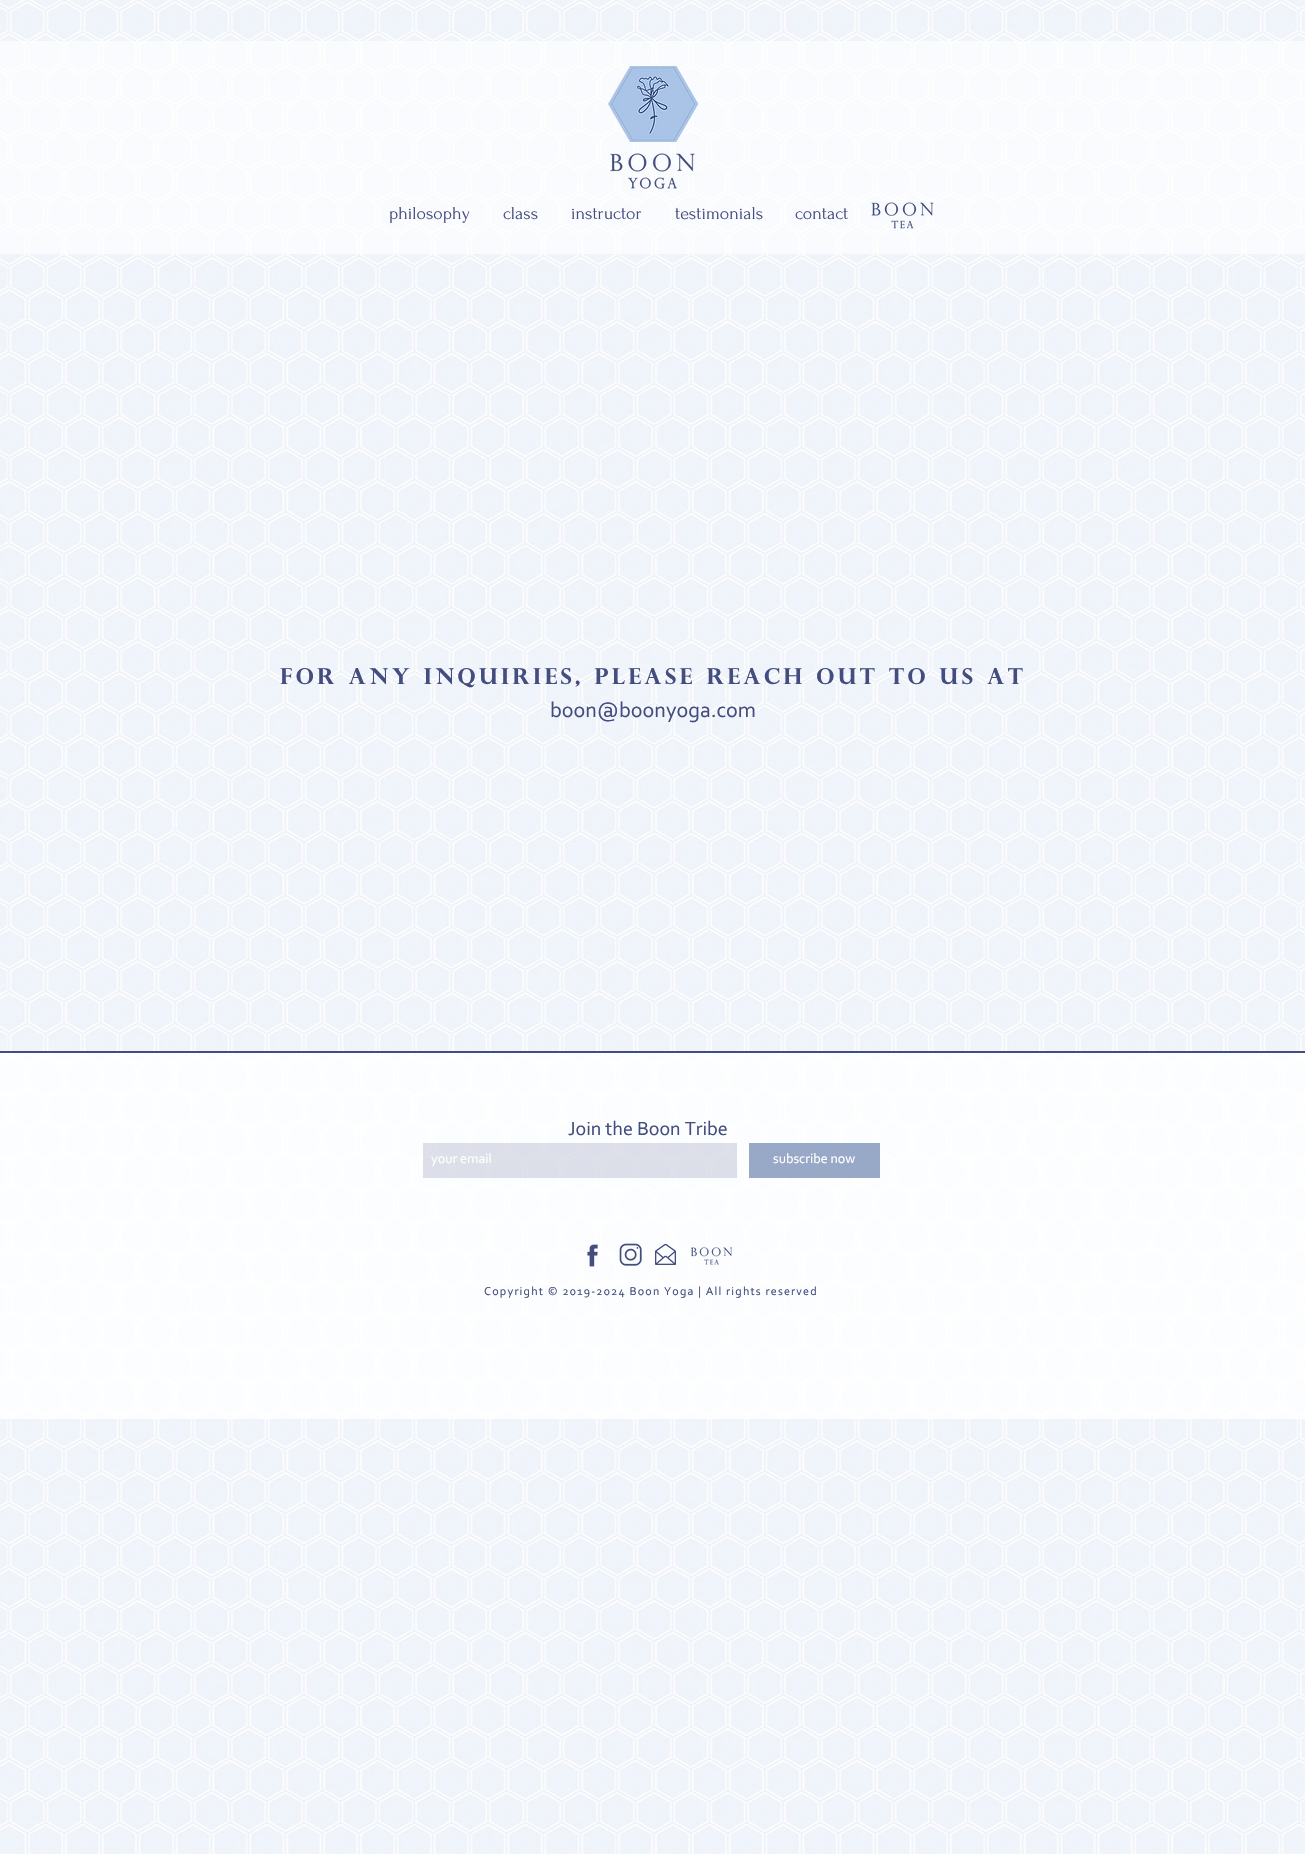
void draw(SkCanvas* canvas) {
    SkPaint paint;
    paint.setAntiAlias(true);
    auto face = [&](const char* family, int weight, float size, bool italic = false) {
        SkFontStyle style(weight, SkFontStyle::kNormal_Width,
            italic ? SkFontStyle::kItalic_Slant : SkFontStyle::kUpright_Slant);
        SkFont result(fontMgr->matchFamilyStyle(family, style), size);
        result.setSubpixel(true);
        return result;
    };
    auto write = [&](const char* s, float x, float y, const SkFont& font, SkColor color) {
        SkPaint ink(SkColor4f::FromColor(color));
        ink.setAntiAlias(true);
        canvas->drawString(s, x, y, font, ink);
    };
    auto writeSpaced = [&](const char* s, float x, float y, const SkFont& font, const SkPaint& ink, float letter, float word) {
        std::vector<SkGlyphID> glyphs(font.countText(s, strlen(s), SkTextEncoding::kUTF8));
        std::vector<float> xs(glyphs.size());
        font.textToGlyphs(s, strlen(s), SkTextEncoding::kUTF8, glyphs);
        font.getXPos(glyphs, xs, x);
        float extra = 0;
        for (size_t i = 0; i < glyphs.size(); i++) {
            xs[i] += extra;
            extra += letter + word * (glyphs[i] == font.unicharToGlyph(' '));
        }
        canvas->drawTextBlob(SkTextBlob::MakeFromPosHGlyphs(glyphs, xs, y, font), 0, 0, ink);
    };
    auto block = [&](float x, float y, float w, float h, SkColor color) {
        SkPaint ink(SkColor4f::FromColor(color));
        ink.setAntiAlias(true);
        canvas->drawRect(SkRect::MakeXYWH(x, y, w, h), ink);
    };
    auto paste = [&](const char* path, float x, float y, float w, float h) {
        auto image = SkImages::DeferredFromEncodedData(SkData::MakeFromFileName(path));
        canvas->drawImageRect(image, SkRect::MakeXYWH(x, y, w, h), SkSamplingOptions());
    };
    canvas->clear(SK_ColorWHITE);
    paste("pic1.png", 0, 0, 1305, 1854);
    block(0, 41, 1305, 213, SkColorSetARGB(163, 255, 255, 255));
    paste("pic2.png", 608, 66, 91, 76);
    paste("pic3.png", 610, 153, 85, 36);
    auto kFont1 = face("Forum", 400, 18);
    write("philosophy", 389, 219, kFont1, SkColorSetRGB(68, 77, 127));
    write("class", 503, 219, kFont1, SkColorSetRGB(68, 77, 127));
    write("instructor", 571, 219, kFont1, SkColorSetRGB(68, 77, 127));
    write("testimonials", 675, 219, kFont1, SkColorSetRGB(68, 77, 127));
    write("contact", 795, 219, kFont1, SkColorSetRGB(68, 77, 127));
    paste("pic4.png", 871, 202, 63, 27);
    auto kFont2 = face("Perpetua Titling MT", 700, 22);
    paint.setColor(SkColorSetRGB(68, 77, 127));
    writeSpaced("For any inquiries, please reach out to us at", 280, 684, kFont2, paint, 3.3f, 0);
    auto kFont3 = face("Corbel", 400, 22);
    write("boon@boonyoga.com", 550, 717, kFont3, SkColorSetRGB(68, 77, 127));
    block(0, 1053, 1305, 366, SkColorSetARGB(204, 255, 255, 255));
    block(0, 1051, 1305, 2, SkColorSetRGB(68, 77, 127));
    auto kFont4 = face("Corbel", 400, 20);
    write("Join the Boon Tribe", 568, 1135, kFont4, SkColorSetRGB(68, 77, 127));
    block(423, 1143, 314, 35, SkColorSetARGB(43, 68, 77, 127));
    auto kFont5 = face("Corbel", 400, 14);
    write("your email", 431, 1163, kFont5, SK_ColorWHITE);
    block(749, 1143, 131, 35, SkColorSetARGB(173, 104, 127, 173));
    write("subscribe now", 773, 1163, kFont5, SK_ColorWHITE);
    paste("pic5.png", 587, 1244, 11, 23);
    paste("pic6.png", 619, 1243, 23, 23);
    paste("pic7.png", 655, 1244, 21, 21);
    paste("pic8.png", 691, 1247, 42, 18);
    auto kFont6 = face("Corbel", 400, 12);
    writeSpaced("Copyright © 2019-2024 Boon Yoga | All rights reserved", 484, 1295, kFont6, paint, 1.2f, 0);
}
